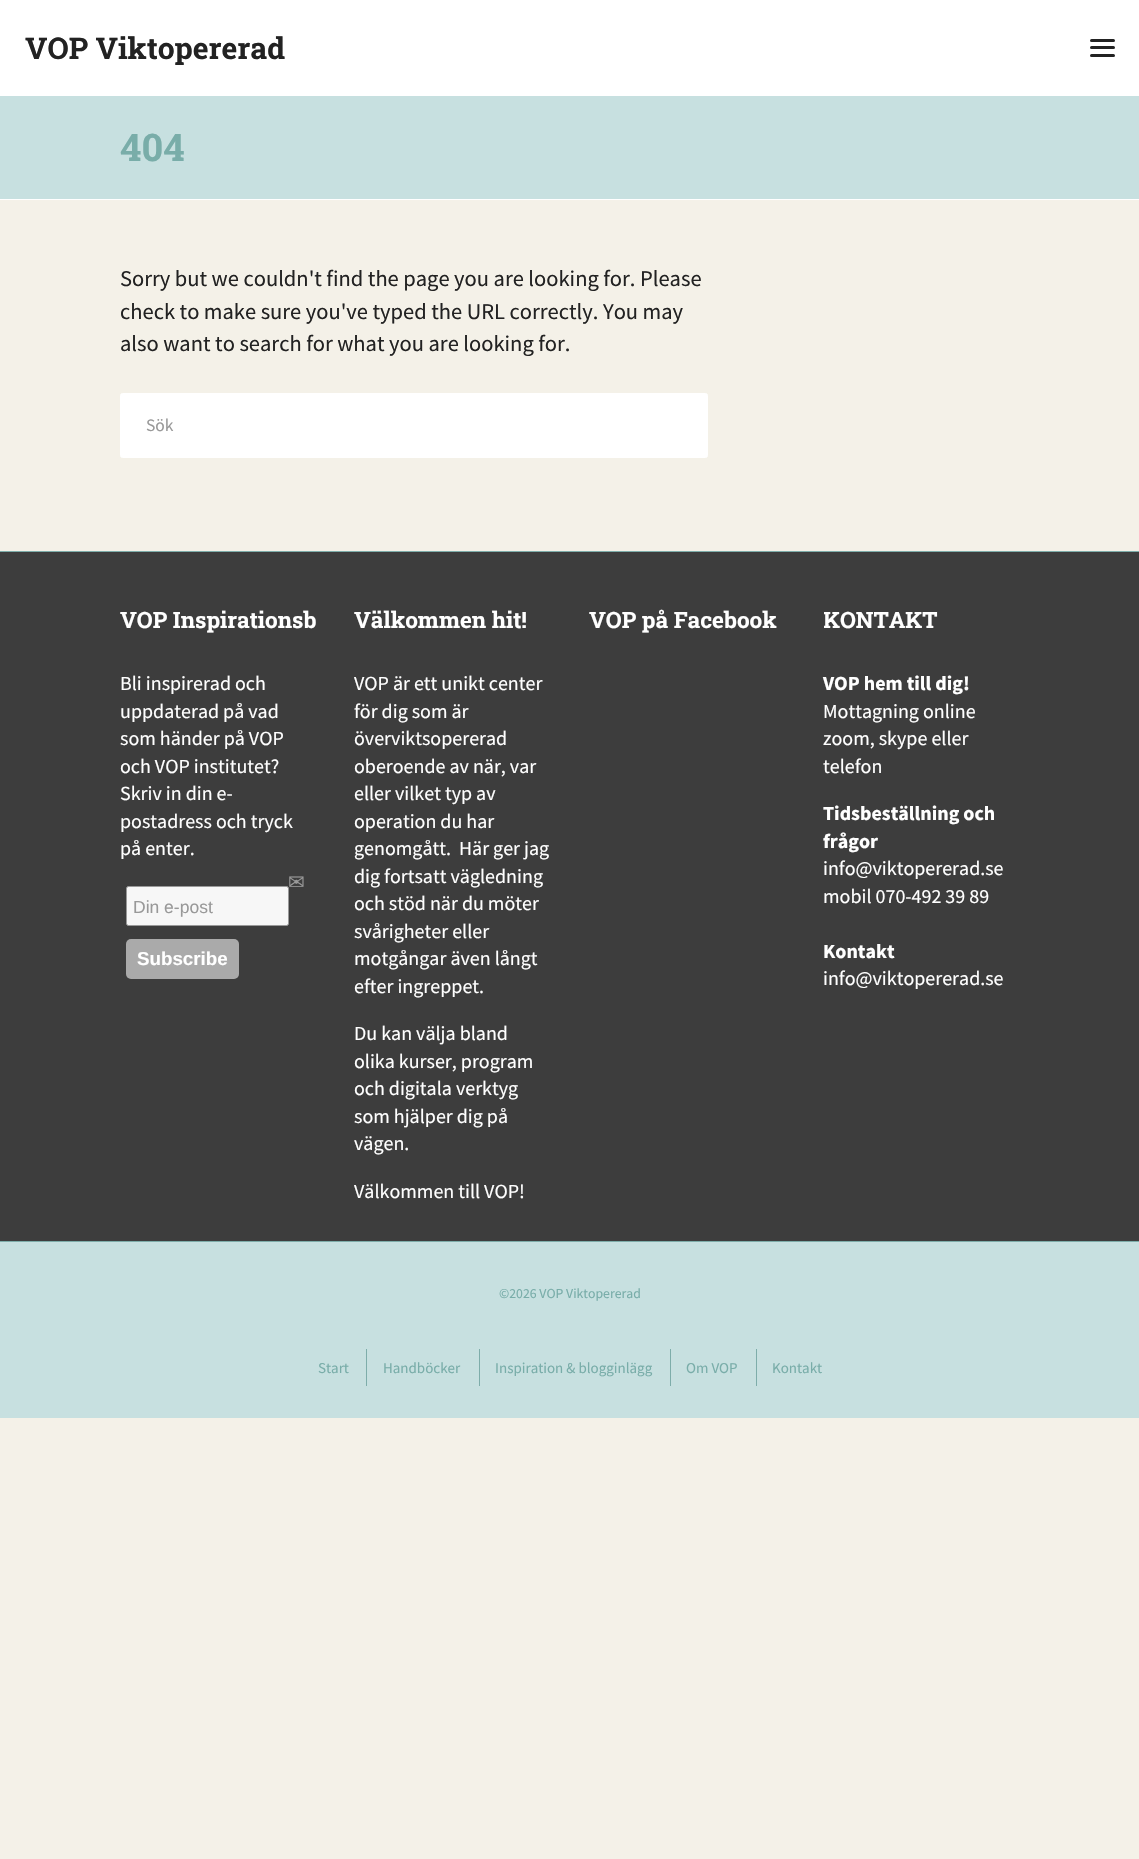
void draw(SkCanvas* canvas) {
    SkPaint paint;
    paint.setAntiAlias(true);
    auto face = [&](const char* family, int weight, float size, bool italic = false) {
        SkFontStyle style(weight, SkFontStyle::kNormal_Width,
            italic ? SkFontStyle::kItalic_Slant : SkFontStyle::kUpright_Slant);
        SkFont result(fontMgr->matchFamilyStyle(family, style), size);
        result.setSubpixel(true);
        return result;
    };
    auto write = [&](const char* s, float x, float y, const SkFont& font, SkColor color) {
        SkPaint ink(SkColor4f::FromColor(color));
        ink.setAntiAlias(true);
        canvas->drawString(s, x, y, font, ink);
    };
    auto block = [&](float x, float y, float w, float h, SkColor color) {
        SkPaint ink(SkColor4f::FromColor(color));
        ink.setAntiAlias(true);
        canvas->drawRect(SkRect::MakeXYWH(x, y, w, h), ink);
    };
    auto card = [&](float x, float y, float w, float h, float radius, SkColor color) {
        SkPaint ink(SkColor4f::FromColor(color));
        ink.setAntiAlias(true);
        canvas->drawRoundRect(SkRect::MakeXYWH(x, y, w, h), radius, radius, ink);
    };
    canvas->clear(SkColorSetRGB(244, 241, 232));
    block(0, 0, 1139, 96, SK_ColorWHITE);
    auto kFont1 = face("Roboto Slab", 700, 30);
    write("VOP Viktopererad", 25, 59, kFont1, SkColorSetRGB(34, 34, 34));
    card(1090, 46, 25, 3, 1.5f, SkColorSetRGB(34, 34, 34));
    card(1090, 39, 25, 3, 1.5f, SkColorSetRGB(34, 34, 34));
    card(1090, 54, 25, 3, 1.5f, SkColorSetRGB(34, 34, 34));
    block(0, 96, 1139, 103, SkColorSetRGB(199, 224, 224));
    block(0, 199, 1139, 1, SK_ColorWHITE);
    auto kFont2 = face("Roboto Slab", 700, 38);
    write("404", 120, 161, kFont2, SkColorSetRGB(121, 173, 169));
    auto kFont3 = face("Source Sans Pro", 400, 22.5f);
    write("Sorry but we couldn't find the page you are looking for. Please", 120, 286, kFont3, SkColorSetRGB(34, 34, 34));
    write("check to make sure you've typed the URL correctly. You may", 120, 319, kFont3, SkColorSetRGB(34, 34, 34));
    write("also want to search for what you are looking for.", 120, 351, kFont3, SkColorSetRGB(34, 34, 34));
    paint.setColor(SK_ColorWHITE);
    canvas->drawRoundRect(SkRect::MakeXYWH(120.5f, 393.5f, 587, 64), 2, 2, paint);
    paint.setStyle(SkPaint::kStroke_Style);
    paint.setStrokeWidth(1);
    canvas->drawRoundRect(SkRect::MakeXYWH(120.5f, 393.5f, 587, 64), 2, 2, paint);
    auto kFont4 = face("Source Sans Pro", 400, 17.5f);
    write("Sök", 146, 431, kFont4, SkColorSetRGB(153, 153, 153));
    block(0, 552, 1139, 689, SkColorSetRGB(61, 61, 61));
    block(0, 551, 1139, 1, SkColorSetRGB(126, 173, 170));
    auto kFont5 = face("Roboto Slab", 700, 22.5f);
    write("VOP Inspirationsb", 120, 628, kFont5, SK_ColorWHITE);
    auto kFont6 = face("Source Sans Pro", 400, 20);
    write("Bli inspirerad och", 120, 690, kFont6, SK_ColorWHITE);
    write("uppdaterad på vad", 120, 718, kFont6, SK_ColorWHITE);
    write("som händer på VOP", 120, 745, kFont6, SK_ColorWHITE);
    write("och VOP institutet?", 120, 773, kFont6, SK_ColorWHITE);
    write("Skriv in din e-", 120, 800, kFont6, SK_ColorWHITE);
    write("postadress och tryck", 120, 828, kFont6, SK_ColorWHITE);
    write("på enter.", 120, 855, kFont6, SK_ColorWHITE);
    paint.setStyle(SkPaint::kFill_Style);
    paint.setColor(SkColorSetRGB(247, 247, 247));
    canvas->drawRoundRect(SkRect::MakeXYWH(126.5f, 886.5f, 162, 39), 2, 2, paint);
    paint.setStyle(SkPaint::kStroke_Style);
    paint.setColor(SkColorSetRGB(153, 153, 153));
    canvas->drawRoundRect(SkRect::MakeXYWH(126.5f, 886.5f, 162, 39), 2, 2, paint);
    auto kFont7 = face("DejaVu Sans", 400, 20);
    write("✉", 288, 889, kFont7, SkColorSetRGB(153, 153, 153));
    auto kFont8 = face("Liberation Sans", 400, 17.5f);
    write("Din e-post", 133, 913, kFont8, SkColorSetRGB(153, 153, 153));
    card(126, 939, 113, 40, 5, SkColorSetRGB(170, 170, 170));
    auto kFont9 = face("Liberation Sans", 700, 18.75f);
    write("Subscribe", 137, 965, kFont9, SK_ColorWHITE);
    write("Välkommen hit!", 354, 628, kFont5, SK_ColorWHITE);
    write("VOP är ett unikt center", 354, 690, kFont6, SK_ColorWHITE);
    write("för dig som är", 354, 718, kFont6, SK_ColorWHITE);
    write("överviktsopererad", 354, 745, kFont6, SK_ColorWHITE);
    write("oberoende av när, var", 354, 773, kFont6, SK_ColorWHITE);
    write("eller vilket typ av", 354, 800, kFont6, SK_ColorWHITE);
    write("operation du har", 354, 828, kFont6, SK_ColorWHITE);
    write("genomgått.  Här ger jag", 354, 855, kFont6, SK_ColorWHITE);
    write("dig fortsatt vägledning", 354, 883, kFont6, SK_ColorWHITE);
    write("och stöd när du möter", 354, 910, kFont6, SK_ColorWHITE);
    write("svårigheter eller", 354, 938, kFont6, SK_ColorWHITE);
    write("motgångar även långt", 354, 965, kFont6, SK_ColorWHITE);
    write("efter ingreppet.", 354, 993, kFont6, SK_ColorWHITE);
    write("Du kan välja bland", 354, 1040, kFont6, SK_ColorWHITE);
    write("olika kurser, program", 354, 1068, kFont6, SK_ColorWHITE);
    write("och digitala verktyg", 354, 1095, kFont6, SK_ColorWHITE);
    write("som hjälper dig på", 354, 1123, kFont6, SK_ColorWHITE);
    write("vägen.", 354, 1150, kFont6, SK_ColorWHITE);
    write("Välkommen till VOP!", 354, 1198, kFont6, SK_ColorWHITE);
    write("VOP på Facebook", 589, 628, kFont5, SK_ColorWHITE);
    canvas->save();
    canvas->clipRect(SkRect::MakeXYWH(824, 603, 114, 33));
    write("KONTAKT", 823, 628, kFont5, SK_ColorWHITE);
    canvas->restore();
    auto kFont10 = face("Source Sans Pro", 700, 20);
    write("VOP hem till dig!", 823, 690, kFont10, SK_ColorWHITE);
    write("Mottagning online", 823, 718, kFont6, SK_ColorWHITE);
    write("zoom, skype eller", 823, 745, kFont6, SK_ColorWHITE);
    write("telefon", 823, 773, kFont6, SK_ColorWHITE);
    write("Tidsbeställning och", 823, 820, kFont10, SK_ColorWHITE);
    write("frågor", 823, 848, kFont10, SK_ColorWHITE);
    write("info@viktopererad.se", 823, 875, kFont6, SK_ColorWHITE);
    write("mobil 070-492 39 89", 823, 903, kFont6, SK_ColorWHITE);
    write("Kontakt", 823, 958, kFont10, SK_ColorWHITE);
    write("info@viktopererad.se", 823, 985, kFont6, SK_ColorWHITE);
    block(0, 1242, 1139, 176, SkColorSetRGB(199, 224, 224));
    block(0, 1241, 1139, 1, SkColorSetRGB(126, 173, 170));
    auto kFont11 = face("Source Sans Pro", 400, 13.75f);
    write("©2026 VOP Viktopererad", 499, 1298, kFont11, SkColorSetRGB(121, 173, 169));
    auto kFont12 = face("Source Sans Pro", 400, 15);
    write("Start", 318, 1373, kFont12, SkColorSetRGB(121, 173, 169));
    block(366, 1349, 1, 37, SkColorSetRGB(126, 173, 170));
    write("Handböcker", 383, 1373, kFont12, SkColorSetRGB(121, 173, 169));
    block(479, 1349, 1, 37, SkColorSetRGB(126, 173, 170));
    write("Inspiration & blogginlägg", 495, 1373, kFont12, SkColorSetRGB(121, 173, 169));
    block(670, 1349, 1, 37, SkColorSetRGB(126, 173, 170));
    write("Om VOP", 686, 1373, kFont12, SkColorSetRGB(121, 173, 169));
    block(756, 1349, 1, 37, SkColorSetRGB(126, 173, 170));
    write("Kontakt", 772, 1373, kFont12, SkColorSetRGB(121, 173, 169));
}
